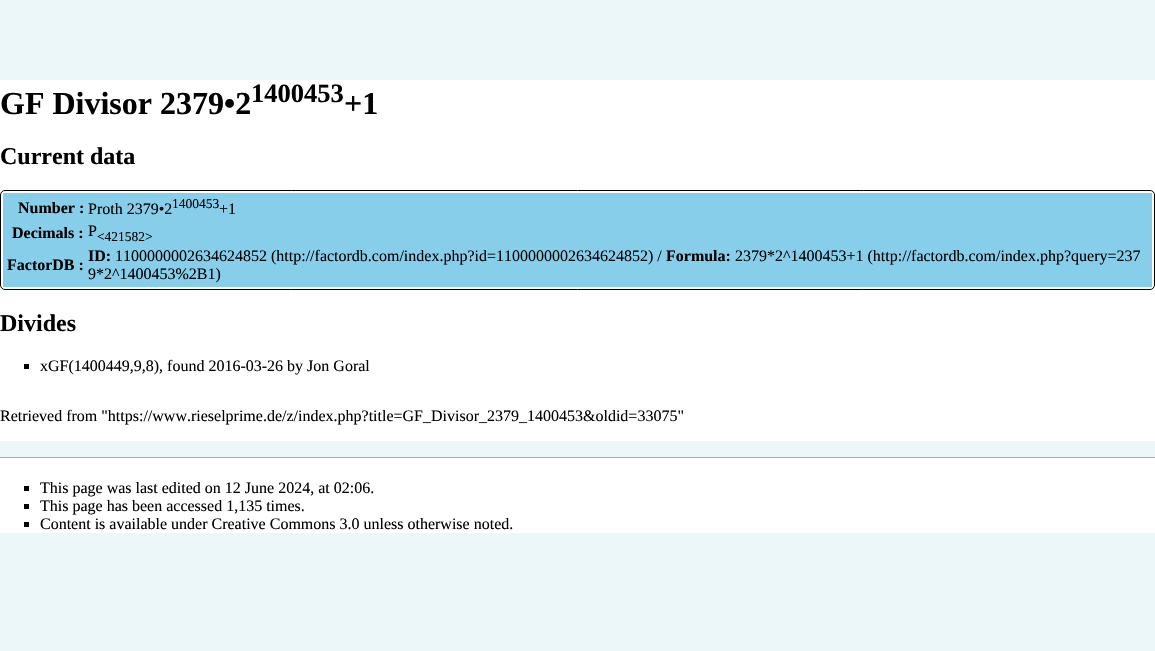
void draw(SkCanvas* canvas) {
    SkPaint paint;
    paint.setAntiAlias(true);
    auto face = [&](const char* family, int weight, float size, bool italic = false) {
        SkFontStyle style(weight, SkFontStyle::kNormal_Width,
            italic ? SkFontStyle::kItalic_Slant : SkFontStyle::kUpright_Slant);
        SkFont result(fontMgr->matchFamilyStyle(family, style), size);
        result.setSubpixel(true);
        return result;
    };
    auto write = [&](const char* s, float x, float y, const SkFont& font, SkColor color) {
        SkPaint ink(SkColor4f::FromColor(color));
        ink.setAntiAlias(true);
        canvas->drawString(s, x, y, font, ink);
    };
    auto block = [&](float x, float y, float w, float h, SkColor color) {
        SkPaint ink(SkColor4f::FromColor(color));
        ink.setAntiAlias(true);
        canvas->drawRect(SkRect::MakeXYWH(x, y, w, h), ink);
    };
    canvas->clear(SkColorSetRGB(235, 247, 249));
    block(0, 80, 1155, 361, SK_ColorWHITE);
    auto kFont1 = face("Liberation Serif", 700, 32);
    write("GF Divisor 2379•2", 0, 114, kFont1, SK_ColorBLACK);
    auto kFont2 = face("Liberation Serif", 700, 26.5f);
    write("1400453", 251, 102, kFont2, SK_ColorBLACK);
    write("+1", 344, 114, kFont1, SK_ColorBLACK);
    auto kFont3 = face("Liberation Serif", 700, 24);
    write("Current data", 0, 164, kFont3, SK_ColorBLACK);
    paint.setStyle(SkPaint::kStroke_Style);
    paint.setStrokeWidth(1);
    paint.setColor(SK_ColorBLACK);
    canvas->drawRoundRect(SkRect::MakeXYWH(0.5f, 190.5f, 1154, 99), 4.5f, 4.5f, paint);
    block(3, 193, 1149, 94, SkColorSetRGB(135, 206, 235));
    auto kFont4 = face("Liberation Serif", 700, 16);
    write("Number :", 18, 213, kFont4, SK_ColorBLACK);
    auto kFont5 = face("Liberation Serif", 400, 16);
    write("Proth 2379•2", 88, 214, kFont5, SK_ColorBLACK);
    auto kFont6 = face("Liberation Serif", 400, 13.5f);
    write("1400453", 172, 208, kFont6, SK_ColorBLACK);
    write("+1", 219, 214, kFont5, SK_ColorBLACK);
    write("Decimals :", 12, 238, kFont4, SK_ColorBLACK);
    write("P", 88, 236, kFont5, SK_ColorBLACK);
    write("<421582>", 97, 241, kFont6, SK_ColorBLACK);
    write("FactorDB :", 7, 270, kFont4, SK_ColorBLACK);
    write("ID:", 88, 261, kFont4, SK_ColorBLACK);
    write("1100000002634624852 (http://factordb.com/index.php?id=1100000002634624852) /", 115, 261, kFont5, SK_ColorBLACK);
    write("Formula:", 666, 261, kFont4, SK_ColorBLACK);
    write("2379*2^1400453+1 (http://factordb.com/index.php?query=237", 735, 261, kFont5, SK_ColorBLACK);
    write("9*2^1400453%2B1)", 88, 279, kFont5, SK_ColorBLACK);
    write("Divides", 0, 331, kFont3, SK_ColorBLACK);
    block(24, 364, 5, 5, SK_ColorBLACK);
    write("xGF(1400449,9,8), found 2016-03-26 by Jon Goral", 40, 371, kFont5, SK_ColorBLACK);
    write("Retrieved from \"https://www.rieselprime.de/z/index.php?title=GF_Divisor_2379_1400453&oldid=33075\"", 0, 421, kFont5, SK_ColorBLACK);
    block(0, 458, 1155, 75, SK_ColorWHITE);
    block(0, 457, 1155, 1, SkColorSetRGB(170, 170, 170));
    block(24, 486, 5, 5, SK_ColorBLACK);
    write("This page was last edited on 12 June 2024, at 02:06.", 40, 493, kFont5, SK_ColorBLACK);
    block(24, 504, 5, 5, SK_ColorBLACK);
    write("This page has been accessed 1,135 times.", 40, 511, kFont5, SK_ColorBLACK);
    block(24, 522, 5, 5, SK_ColorBLACK);
    write("Content is available under Creative Commons 3.0 unless otherwise noted.", 40, 529, kFont5, SK_ColorBLACK);
}
